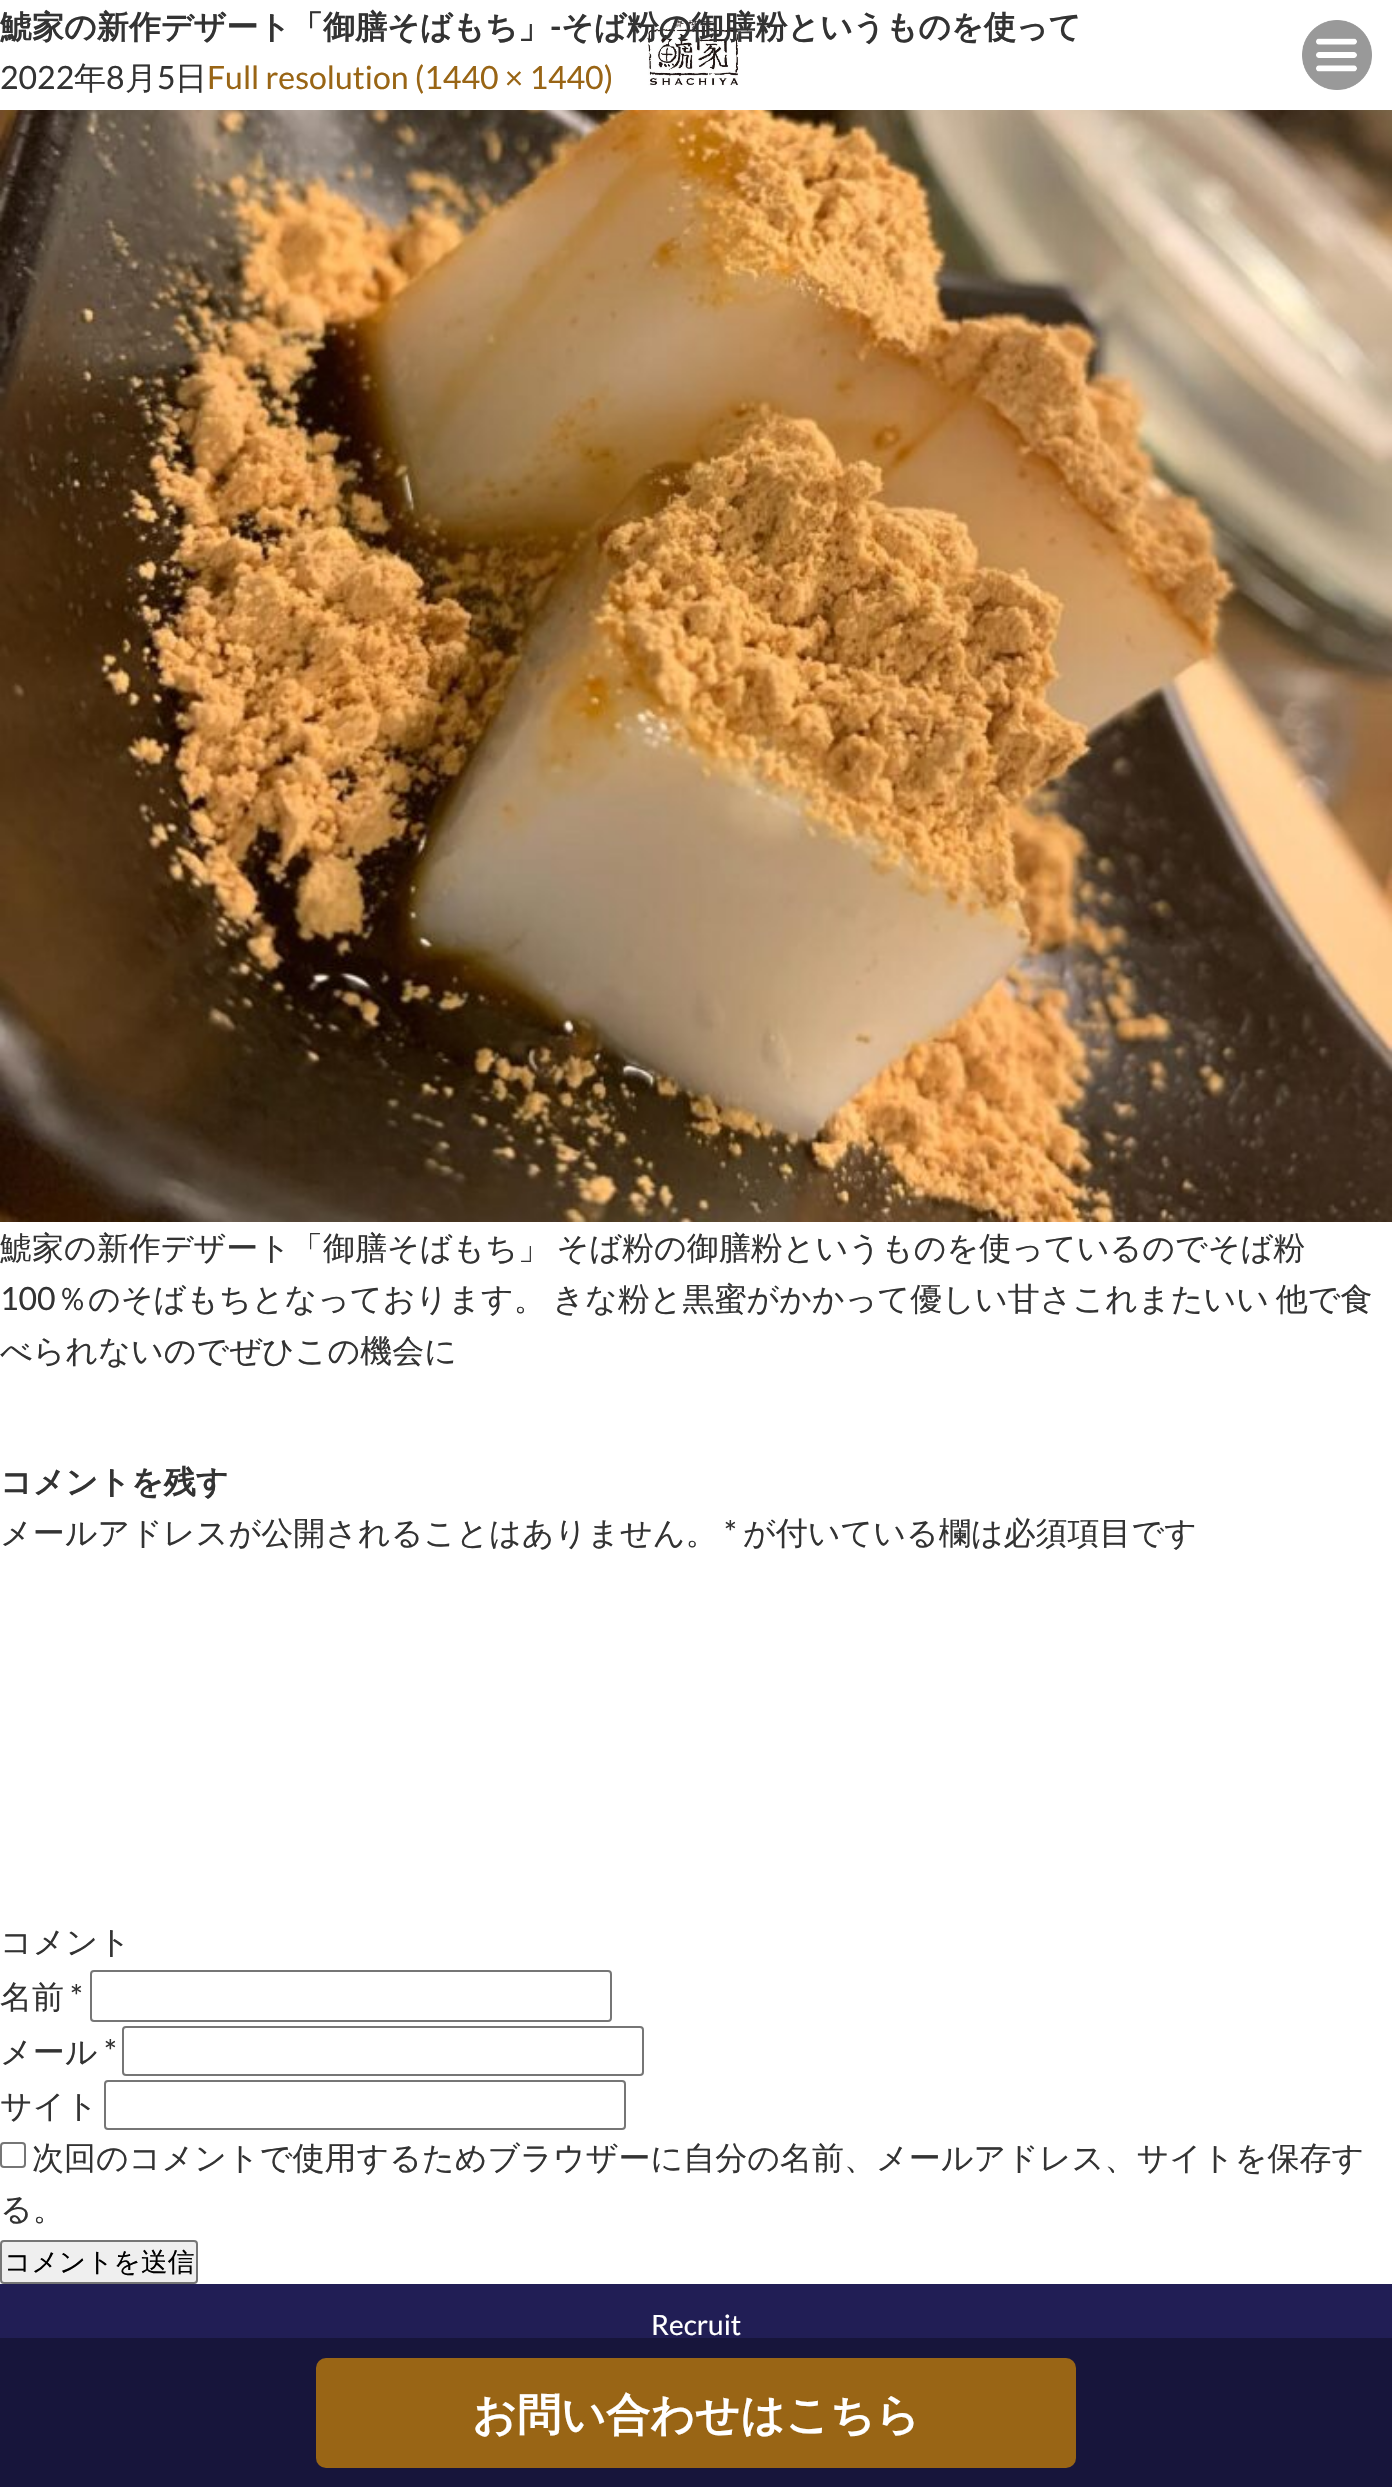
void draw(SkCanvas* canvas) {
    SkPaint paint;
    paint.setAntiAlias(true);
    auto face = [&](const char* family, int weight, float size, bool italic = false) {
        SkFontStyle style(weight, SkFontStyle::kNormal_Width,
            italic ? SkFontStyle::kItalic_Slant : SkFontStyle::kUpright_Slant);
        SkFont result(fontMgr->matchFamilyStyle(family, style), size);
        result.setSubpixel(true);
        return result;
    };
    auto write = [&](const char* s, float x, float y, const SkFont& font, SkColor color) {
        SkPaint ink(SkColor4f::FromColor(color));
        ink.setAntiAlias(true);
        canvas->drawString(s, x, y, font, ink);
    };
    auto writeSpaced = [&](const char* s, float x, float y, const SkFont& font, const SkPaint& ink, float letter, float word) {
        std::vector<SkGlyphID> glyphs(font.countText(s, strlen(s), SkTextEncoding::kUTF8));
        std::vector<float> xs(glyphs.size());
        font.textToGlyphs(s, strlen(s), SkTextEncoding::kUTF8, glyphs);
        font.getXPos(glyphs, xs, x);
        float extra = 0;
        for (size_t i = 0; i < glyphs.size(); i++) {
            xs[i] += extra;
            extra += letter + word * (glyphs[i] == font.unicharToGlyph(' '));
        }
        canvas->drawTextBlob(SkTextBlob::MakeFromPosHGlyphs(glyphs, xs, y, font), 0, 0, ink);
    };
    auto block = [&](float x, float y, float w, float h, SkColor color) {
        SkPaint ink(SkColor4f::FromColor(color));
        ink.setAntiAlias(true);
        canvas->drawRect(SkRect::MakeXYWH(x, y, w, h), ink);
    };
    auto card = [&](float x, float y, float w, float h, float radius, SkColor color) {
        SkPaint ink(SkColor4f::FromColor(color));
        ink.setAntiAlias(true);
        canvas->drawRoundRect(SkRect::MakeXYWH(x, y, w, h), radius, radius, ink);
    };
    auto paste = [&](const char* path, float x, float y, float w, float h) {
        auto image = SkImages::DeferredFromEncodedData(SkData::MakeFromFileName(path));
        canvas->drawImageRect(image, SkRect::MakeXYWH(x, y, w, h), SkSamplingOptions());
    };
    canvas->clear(SK_ColorWHITE);
    auto kFont1 = face("WenQuanYi Zen Hei", 700, 32);
    write("鯱家の新作デザート「御膳そばもち」", 0, 38, kFont1, SkColorSetRGB(51, 51, 51));
    auto kFont2 = face("Lato", 700, 32);
    write("-", 550, 38, kFont2, SkColorSetRGB(51, 51, 51));
    paste("pic2.png", 648, 20, 91, 66);
    write("そば粉の御膳粉というものを使って", 561, 38, kFont1, SkColorSetRGB(51, 51, 51));
    auto kFont3 = face("Lato", 400, 32);
    write("2022", 0, 89, kFont3, SkColorSetRGB(51, 51, 51));
    auto kFont4 = face("WenQuanYi Zen Hei", 500, 32);
    write("年", 74, 89, kFont4, SkColorSetRGB(51, 51, 51));
    write("8", 106, 89, kFont3, SkColorSetRGB(51, 51, 51));
    write("月", 125, 89, kFont4, SkColorSetRGB(51, 51, 51));
    write("5", 157, 89, kFont3, SkColorSetRGB(51, 51, 51));
    write("日", 175, 89, kFont4, SkColorSetRGB(51, 51, 51));
    write("Full resolution (1440 × 1440)", 207, 89, kFont3, SkColorSetRGB(153, 101, 21));
    paste("pic1.png", 0, 110, 1392, 1112);
    paint.setColor(SkColorSetRGB(51, 51, 51));
    writeSpaced("鯱家の新作デザート「御膳そばもち」 そば粉の御膳粉というものを使っているのでそば粉", 0, 1259, kFont4, paint, 0, -3);
    write("100", 0, 1310, kFont3, SkColorSetRGB(51, 51, 51));
    writeSpaced("％のそばもちとなっております。 きな粉と黒蜜がかかって優しい甘さこれまたいい 他で食", 56, 1310, kFont4, paint, 0, -3);
    write("べられないのでぜひこの機会に", 0, 1362, kFont4, SkColorSetRGB(51, 51, 51));
    write("コメントを残す", 0, 1493, kFont1, SkColorSetRGB(51, 51, 51));
    write("メールアドレスが公開されることはありません。", 0, 1544, kFont4, SkColorSetRGB(51, 51, 51));
    write("*", 724, 1544, kFont3, SkColorSetRGB(51, 51, 51));
    write("が付いている欄は必須項目です", 743, 1544, kFont4, SkColorSetRGB(51, 51, 51));
    write("コメント", 0, 1953, kFont4, SkColorSetRGB(51, 51, 51));
    write("名前", 0, 2008, kFont4, SkColorSetRGB(51, 51, 51));
    write("*", 70, 2008, kFont3, SkColorSetRGB(51, 51, 51));
    paint.setStyle(SkPaint::kStroke_Style);
    paint.setStrokeWidth(2);
    paint.setColor(SkColorSetRGB(118, 118, 118));
    canvas->drawRoundRect(SkRect::MakeXYWH(91, 1971, 520, 50), 3, 3, paint);
    write("メール", 0, 2063, kFont4, SkColorSetRGB(51, 51, 51));
    write("*", 104, 2063, kFont3, SkColorSetRGB(51, 51, 51));
    canvas->drawRoundRect(SkRect::MakeXYWH(123, 2027, 520, 48), 3, 3, paint);
    write("サイト", 0, 2117, kFont4, SkColorSetRGB(51, 51, 51));
    canvas->drawRoundRect(SkRect::MakeXYWH(105, 2081, 520, 48), 3, 3, paint);
    canvas->drawRoundRect(SkRect::MakeXYWH(1, 2143, 24, 24), 3, 3, paint);
    write("次回のコメントで使用するためブラウザーに自分の名前、メールアドレス、サイトを保存す", 32, 2169, kFont4, SkColorSetRGB(51, 51, 51));
    write("る。", 0, 2220, kFont4, SkColorSetRGB(51, 51, 51));
    paint.setStyle(SkPaint::kFill_Style);
    paint.setColor(SkColorSetRGB(239, 239, 239));
    canvas->drawRoundRect(SkRect::MakeXYWH(1, 2241, 196, 42), 3, 3, paint);
    paint.setStyle(SkPaint::kStroke_Style);
    paint.setColor(SkColorSetRGB(118, 118, 118));
    canvas->drawRoundRect(SkRect::MakeXYWH(1, 2241, 196, 42), 3, 3, paint);
    auto kFont5 = face("WenQuanYi Zen Hei", 500, 26.75f);
    write("コメントを送信", 4, 2271, kFont5, SK_ColorBLACK);
    paste("pic3.png", 1302, 20, 70, 70);
    block(0, 2284, 1392, 54, SkColorSetRGB(33, 30, 85));
    block(0, 2338, 1392, 149, SkColorSetRGB(23, 21, 59));
    auto kFont6 = face("Lato", 400, 28);
    write("Recruit", 651, 2335, kFont6, SK_ColorWHITE);
    card(316, 2358, 760, 110, 10, SkColorSetRGB(153, 101, 21));
    auto kFont7 = face("WenQuanYi Zen Hei", 700, 44);
    write("お問い合わせはこちら", 472, 2430, kFont7, SK_ColorWHITE);
}
